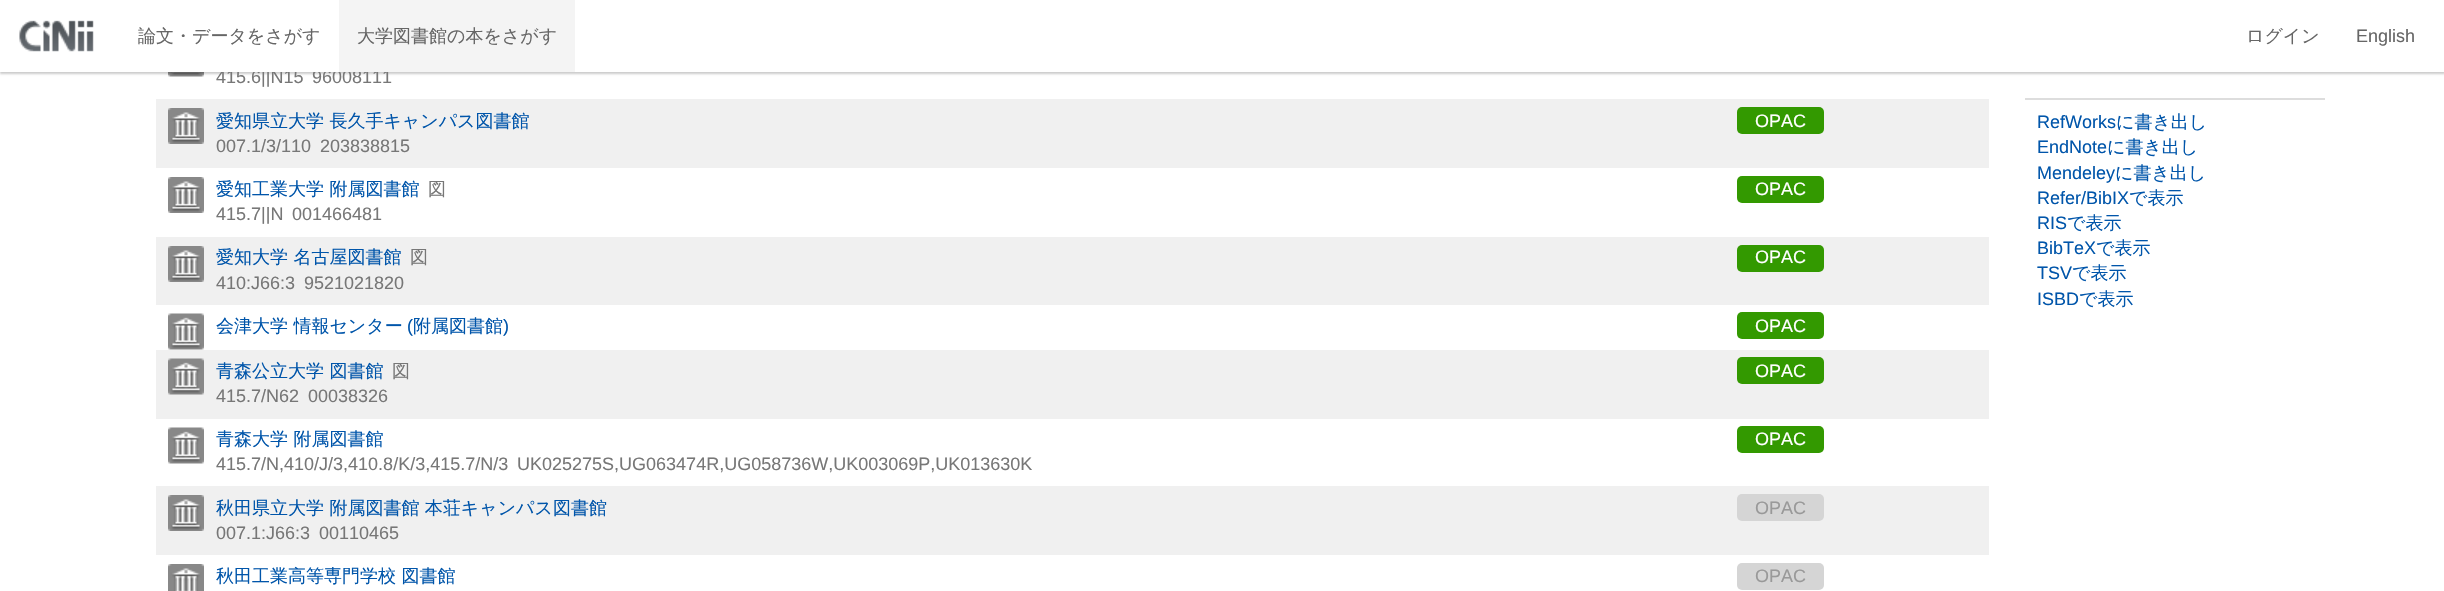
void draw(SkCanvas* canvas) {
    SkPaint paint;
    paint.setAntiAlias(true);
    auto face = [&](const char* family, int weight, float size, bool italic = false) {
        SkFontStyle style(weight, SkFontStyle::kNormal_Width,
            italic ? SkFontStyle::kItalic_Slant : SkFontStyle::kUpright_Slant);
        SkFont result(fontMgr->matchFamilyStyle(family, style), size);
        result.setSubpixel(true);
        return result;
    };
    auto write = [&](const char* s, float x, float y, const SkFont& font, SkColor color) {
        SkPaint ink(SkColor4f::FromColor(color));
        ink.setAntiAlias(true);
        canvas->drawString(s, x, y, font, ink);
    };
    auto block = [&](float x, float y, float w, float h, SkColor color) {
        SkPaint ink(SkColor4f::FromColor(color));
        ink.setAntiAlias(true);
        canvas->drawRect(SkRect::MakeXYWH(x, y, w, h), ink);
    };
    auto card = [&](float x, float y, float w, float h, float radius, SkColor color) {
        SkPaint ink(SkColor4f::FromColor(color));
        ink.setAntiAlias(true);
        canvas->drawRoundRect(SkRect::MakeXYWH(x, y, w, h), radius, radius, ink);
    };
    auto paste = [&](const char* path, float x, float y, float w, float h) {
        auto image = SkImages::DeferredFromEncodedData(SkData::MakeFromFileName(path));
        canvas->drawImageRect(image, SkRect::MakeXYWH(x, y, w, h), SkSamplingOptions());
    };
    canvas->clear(SK_ColorWHITE);
    paste("pic2.png", 168, 72, 36, 5);
    paint.setColor(SkColorSetARGB(51, 0, 0, 0));
    paint.setMaskFilter(SkMaskFilter::MakeBlur(kNormal_SkBlurStyle, 1));
    canvas->drawRect(SkRect::MakeXYWH(0, 2, 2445, 72), paint);
    paint.setMaskFilter(nullptr);
    auto kFont1 = face("Liberation Sans", 400, 18);
    write("415.6||N15", 216, 83, kFont1, SkColorSetRGB(119, 119, 119));
    write("96008111", 312, 83, kFont1, SkColorSetRGB(119, 119, 119));
    block(0, 0, 2444, 72, SK_ColorWHITE);
    paste("pic1.png", 19, 20, 75, 32);
    auto kFont2 = face("WenQuanYi Zen Hei", 500, 18);
    write("論文・データをさがす", 138, 42, kFont2, SkColorSetRGB(102, 102, 102));
    block(339, 0, 236, 72, SkColorSetRGB(244, 244, 244));
    write("大学図書館の本をさがす", 357, 42, kFont2, SkColorSetRGB(102, 102, 102));
    write("ログイン", 2246, 42, kFont2, SkColorSetRGB(102, 102, 102));
    write("English", 2356, 42, kFont1, SkColorSetRGB(102, 102, 102));
    block(156, 99, 1833, 69, SkColorSetRGB(240, 240, 240));
    paste("pic3.png", 168, 108, 36, 36);
    write("愛知県立大学 長久手キャンパス図書館", 216, 127, kFont2, SkColorSetRGB(0, 85, 170));
    card(1737, 107, 87, 27, 5, SkColorSetRGB(51, 153, 0));
    write("OPAC", 1755, 127, kFont1, SK_ColorWHITE);
    write("007.1/3/110", 216, 152, kFont1, SkColorSetRGB(119, 119, 119));
    write("203838815", 320, 152, kFont1, SkColorSetRGB(119, 119, 119));
    paste("pic4.png", 168, 177, 36, 36);
    write("愛知工業大学 附属図書館", 216, 195, kFont2, SkColorSetRGB(0, 85, 170));
    write("図", 428, 195, kFont2, SkColorSetRGB(119, 119, 119));
    card(1737, 176, 87, 27, 5, SkColorSetRGB(51, 153, 0));
    write("OPAC", 1755, 195, kFont1, SK_ColorWHITE);
    write("415.7||N", 216, 220, kFont1, SkColorSetRGB(119, 119, 119));
    write("001466481", 292, 220, kFont1, SkColorSetRGB(119, 119, 119));
    block(156, 237, 1833, 68, SkColorSetRGB(240, 240, 240));
    paste("pic3.png", 168, 246, 36, 36);
    write("愛知大学 名古屋図書館", 216, 263, kFont2, SkColorSetRGB(0, 85, 170));
    write("図", 410, 263, kFont2, SkColorSetRGB(119, 119, 119));
    card(1737, 245, 87, 27, 5, SkColorSetRGB(51, 153, 0));
    write("OPAC", 1755, 263, kFont1, SK_ColorWHITE);
    write("410:J66:3", 216, 289, kFont1, SkColorSetRGB(119, 119, 119));
    write("9521021820", 304, 289, kFont1, SkColorSetRGB(119, 119, 119));
    paste("pic5.png", 168, 313, 36, 37);
    write("会津大学 情報センター", 216, 332, kFont2, SkColorSetRGB(0, 85, 170));
    write("(", 407, 332, kFont1, SkColorSetRGB(0, 85, 170));
    write("附属図書館", 413, 332, kFont2, SkColorSetRGB(0, 85, 170));
    write(")", 503, 332, kFont1, SkColorSetRGB(0, 85, 170));
    card(1737, 312, 87, 27, 5, SkColorSetRGB(51, 153, 0));
    write("OPAC", 1755, 332, kFont1, SK_ColorWHITE);
    block(156, 350, 1833, 69, SkColorSetRGB(240, 240, 240));
    paste("pic6.png", 168, 358, 36, 37);
    write("青森公立大学 図書館", 216, 377, kFont2, SkColorSetRGB(0, 85, 170));
    write("図", 392, 377, kFont2, SkColorSetRGB(119, 119, 119));
    card(1737, 357, 87, 27, 5, SkColorSetRGB(51, 153, 0));
    write("OPAC", 1755, 377, kFont1, SK_ColorWHITE);
    write("415.7/N62", 216, 402, kFont1, SkColorSetRGB(119, 119, 119));
    write("00038326", 308, 402, kFont1, SkColorSetRGB(119, 119, 119));
    paste("pic5.png", 168, 427, 36, 37);
    write("青森大学 附属図書館", 216, 445, kFont2, SkColorSetRGB(0, 85, 170));
    card(1737, 426, 87, 27, 5, SkColorSetRGB(51, 153, 0));
    write("OPAC", 1755, 445, kFont1, SK_ColorWHITE);
    write("415.7/N,410/J/3,410.8/K/3,415.7/N/3", 216, 470, kFont1, SkColorSetRGB(119, 119, 119));
    write("UK025275S,UG063474R,UG058736W,UK003069P,UK013630K", 517, 470, kFont1, SkColorSetRGB(119, 119, 119));
    block(156, 486, 1833, 69, SkColorSetRGB(240, 240, 240));
    paste("pic3.png", 168, 495, 36, 36);
    write("秋田県立大学 附属図書館 本荘キャンパス図書館", 216, 514, kFont2, SkColorSetRGB(0, 85, 170));
    card(1737, 494, 87, 27, 5, SkColorSetRGB(213, 213, 213));
    write("OPAC", 1755, 514, kFont1, SkColorSetRGB(153, 153, 153));
    write("007.1:J66:3", 216, 539, kFont1, SkColorSetRGB(119, 119, 119));
    write("00110465", 319, 539, kFont1, SkColorSetRGB(119, 119, 119));
    paste("pic7.png", 168, 564, 36, 27);
    write("秋田工業高等専門学校 図書館", 216, 582, kFont2, SkColorSetRGB(0, 85, 170));
    card(1737, 563, 87, 27, 5, SkColorSetRGB(213, 213, 213));
    write("OPAC", 1755, 582, kFont1, SkColorSetRGB(153, 153, 153));
    block(2025, 98, 300, 2, SkColorSetRGB(221, 221, 221));
    write("RefWorks", 2037, 128, kFont1, SkColorSetRGB(0, 85, 170));
    write("に書き出し", 2116, 128, kFont2, SkColorSetRGB(0, 85, 170));
    write("EndNote", 2037, 153, kFont1, SkColorSetRGB(0, 85, 170));
    write("に書き出し", 2107, 153, kFont2, SkColorSetRGB(0, 85, 170));
    write("Mendeley", 2037, 179, kFont1, SkColorSetRGB(0, 85, 170));
    write("に書き出し", 2115, 179, kFont2, SkColorSetRGB(0, 85, 170));
    write("Refer/BibIX", 2037, 204, kFont1, SkColorSetRGB(0, 85, 170));
    write("で表示", 2129, 204, kFont2, SkColorSetRGB(0, 85, 170));
    write("RIS", 2037, 229, kFont1, SkColorSetRGB(0, 85, 170));
    write("で表示", 2067, 229, kFont2, SkColorSetRGB(0, 85, 170));
    write("BibTeX", 2037, 254, kFont1, SkColorSetRGB(0, 85, 170));
    write("で表示", 2096, 254, kFont2, SkColorSetRGB(0, 85, 170));
    write("TSV", 2037, 279, kFont1, SkColorSetRGB(0, 85, 170));
    write("で表示", 2072, 279, kFont2, SkColorSetRGB(0, 85, 170));
    write("ISBD", 2037, 305, kFont1, SkColorSetRGB(0, 85, 170));
    write("で表示", 2079, 305, kFont2, SkColorSetRGB(0, 85, 170));
}
